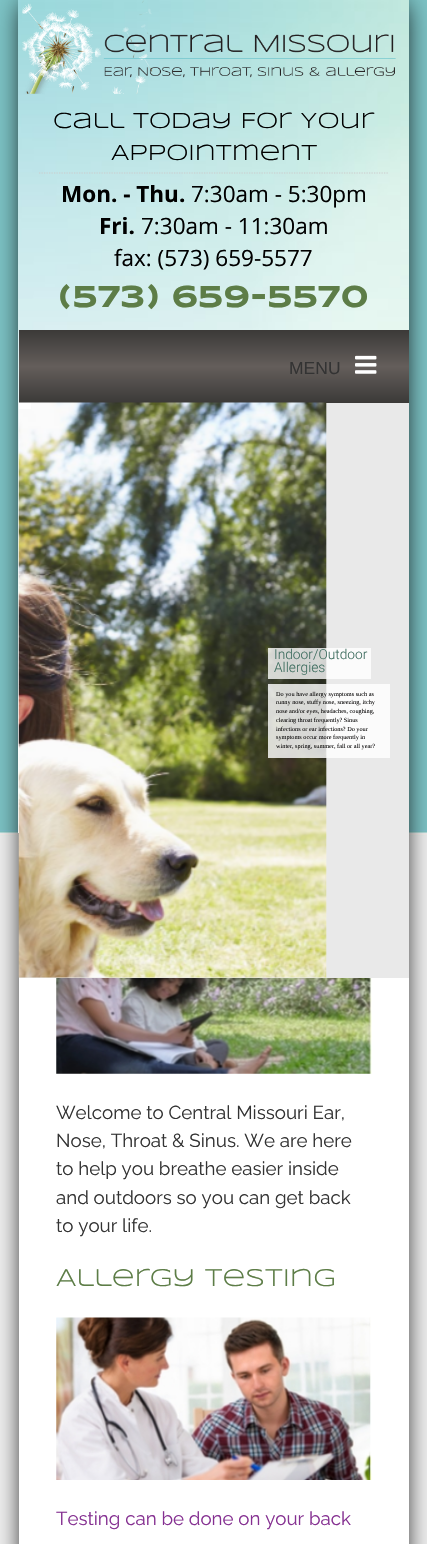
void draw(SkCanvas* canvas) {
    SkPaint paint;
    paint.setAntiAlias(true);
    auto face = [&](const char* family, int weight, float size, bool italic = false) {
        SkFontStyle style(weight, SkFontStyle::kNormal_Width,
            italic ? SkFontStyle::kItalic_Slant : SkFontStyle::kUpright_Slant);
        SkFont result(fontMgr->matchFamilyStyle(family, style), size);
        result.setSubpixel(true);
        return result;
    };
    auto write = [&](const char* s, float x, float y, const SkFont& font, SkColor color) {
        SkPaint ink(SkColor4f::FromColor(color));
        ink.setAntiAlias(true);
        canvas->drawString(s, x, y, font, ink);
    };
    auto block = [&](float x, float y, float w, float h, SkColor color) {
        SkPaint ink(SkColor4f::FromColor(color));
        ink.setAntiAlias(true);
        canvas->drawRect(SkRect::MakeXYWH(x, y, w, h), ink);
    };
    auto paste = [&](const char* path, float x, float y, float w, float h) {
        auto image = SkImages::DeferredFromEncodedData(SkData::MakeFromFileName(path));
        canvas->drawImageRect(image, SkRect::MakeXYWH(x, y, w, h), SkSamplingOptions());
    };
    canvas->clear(SkColorSetRGB(241, 241, 241));
    paste("pic1.png", 0, 0, 427, 836);
    paint.setColor(SK_ColorBLACK);
    paint.setMaskFilter(SkMaskFilter::MakeBlur(kNormal_SkBlurStyle, 12.5f));
    canvas->drawRect(SkRect::MakeXYWH(23, 4, 382, 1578), paint);
    paint.setMaskFilter(nullptr);
    paste("pic2.png", 18, 0, 391, 833);
    paste("pic3.png", 22, 0, 374, 94);
    auto kFont1 = face("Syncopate", 400, 22.5f);
    write("Call Today For Your", 53, 128, kFont1, SK_ColorBLACK);
    write("Appointment", 111, 160, kFont1, SK_ColorBLACK);
    paint.setStyle(SkPaint::kStroke_Style);
    paint.setStrokeWidth(1.2f);
    paint.setColor(SkColorSetRGB(204, 204, 204));
    paint.setPathEffect(SkDashPathEffect::Make({{1.25f, 1.25f}}, 0));
    canvas->drawPath(SkPathBuilder().moveTo(39, 173).lineTo(389, 173).detach(), paint);
    paint.setPathEffect(nullptr);
    auto kFont2 = face("Open Sans", 700, 22.5f);
    write("Mon. - Thu.", 61, 202, kFont2, SK_ColorBLACK);
    auto kFont3 = face("Open Sans", 400, 22.5f);
    write("7:30am - 5:30pm", 191, 202, kFont3, SK_ColorBLACK);
    write("Fri.", 99, 234, kFont2, SK_ColorBLACK);
    write("7:30am - 11:30am", 141, 234, kFont3, SK_ColorBLACK);
    write("fax: (573) 659-5577", 114, 266, kFont3, SK_ColorBLACK);
    auto kFont4 = face("Syncopate", 700, 31.25f);
    write("(573) 659-5570", 58, 307, kFont4, SkColorSetRGB(93, 125, 71));
    paint.setStyle(SkPaint::kFill_Style);
    {
        const SkColor colors[] = {SkColorSetRGB(59, 58, 56), SkColorSetRGB(100, 94, 91), SkColorSetRGB(59, 58, 56)};
        const float stops[] = {0, 0.5f, 1};
        const SkPoint ends[] = {{214, 330}, {214, 403}};
        paint.setShader(SkGradientShader::MakeLinear(ends, colors, stops, 3, SkTileMode::kClamp));
        paint.setAlpha(255);
    }
    canvas->drawRect(SkRect::MakeXYWH(19, 330, 390, 73), paint);
    auto kFont5 = face("Liberation Sans", 400, 17.5f);
    write("MENU", 289, 374, kFont5, SkColorSetRGB(51, 51, 51));
    paste("pic4.png", 355, 355, 22, 19);
    block(19, 403, 390, 575, SkColorSetRGB(233, 233, 233));
    paste("pic5.png", 18, 402, 309, 576);
    block(19, 403, 12, 6, SK_ColorWHITE);
    block(268, 648, 103, 31, SkColorSetARGB(201, 255, 255, 255));
    auto kFont6 = face("Roboto", 300, 13.75f);
    write("Indoor/Outdoor", 274, 659, kFont6, SkColorSetRGB(63, 110, 96));
    write("Allergies", 274, 672, kFont6, SkColorSetRGB(63, 110, 96));
    block(268, 684, 122, 74, SkColorSetARGB(207, 255, 255, 255));
    auto kFont7 = face("Liberation Serif", 400, 6.25f);
    write("Do you have allergy symptoms such as", 276, 696, kFont7, SkColorSetRGB(13, 12, 12));
    write("runny nose, stuffy nose, sneezing, itchy", 276, 704, kFont7, SkColorSetRGB(13, 12, 12));
    write("nose and/or eyes, headaches, coughing,", 276, 713, kFont7, SkColorSetRGB(13, 12, 12));
    write("clearing throat frequently? Sinus", 276, 722, kFont7, SkColorSetRGB(13, 12, 12));
    write("infections or ear infections? Do your", 276, 731, kFont7, SkColorSetRGB(13, 12, 12));
    write("symptoms occur more frequently in", 276, 739, kFont7, SkColorSetRGB(13, 12, 12));
    write("winter, spring, summer, fall or all year?", 276, 748, kFont7, SkColorSetRGB(13, 12, 12));
    block(19, 978, 390, 566, SK_ColorWHITE);
    paste("pic6.png", 56, 978, 316, 96);
    auto kFont8 = face("Raleway", 400, 18.75f);
    write("Welcome to Central Missouri Ear,", 56, 1119, kFont8, SkColorSetRGB(51, 51, 51));
    write("Nose, Throat & Sinus. We are here", 56, 1147, kFont8, SkColorSetRGB(51, 51, 51));
    write("to help you breathe easier inside", 56, 1175, kFont8, SkColorSetRGB(51, 51, 51));
    write("and outdoors so you can get back", 56, 1204, kFont8, SkColorSetRGB(51, 51, 51));
    write("to your life.", 56, 1232, kFont8, SkColorSetRGB(51, 51, 51));
    auto kFont9 = face("Syncopate", 400, 25);
    write("Allergy Testing", 56, 1286, kFont9, SkColorSetRGB(93, 125, 71));
    paste("pic7.png", 56, 1317, 316, 163);
    write("Testing can be done on your back", 56, 1525, kFont8, SkColorSetRGB(133, 48, 145));
}
